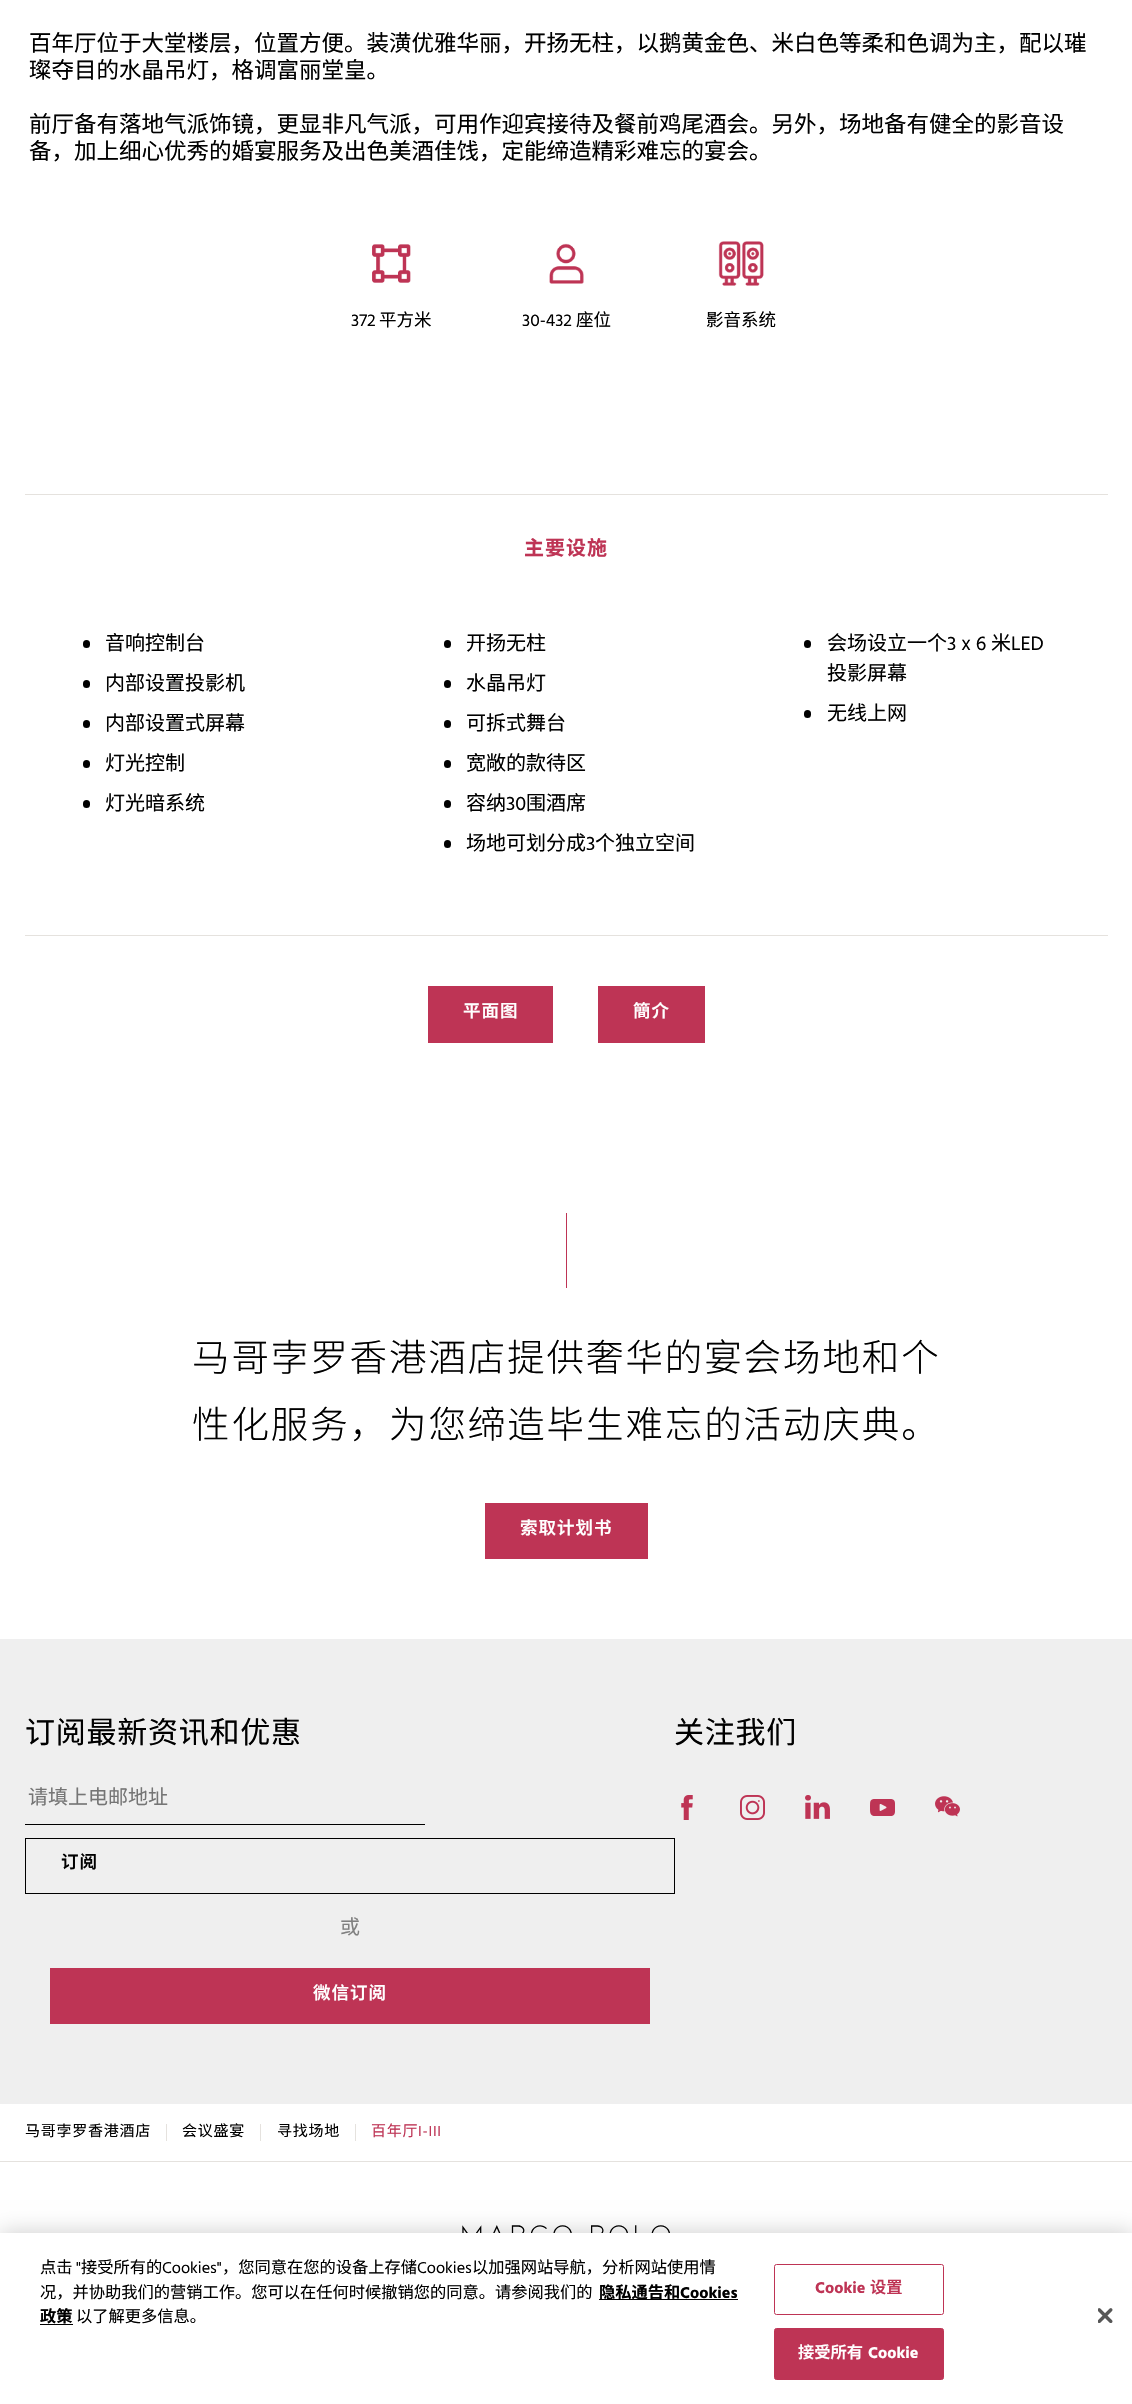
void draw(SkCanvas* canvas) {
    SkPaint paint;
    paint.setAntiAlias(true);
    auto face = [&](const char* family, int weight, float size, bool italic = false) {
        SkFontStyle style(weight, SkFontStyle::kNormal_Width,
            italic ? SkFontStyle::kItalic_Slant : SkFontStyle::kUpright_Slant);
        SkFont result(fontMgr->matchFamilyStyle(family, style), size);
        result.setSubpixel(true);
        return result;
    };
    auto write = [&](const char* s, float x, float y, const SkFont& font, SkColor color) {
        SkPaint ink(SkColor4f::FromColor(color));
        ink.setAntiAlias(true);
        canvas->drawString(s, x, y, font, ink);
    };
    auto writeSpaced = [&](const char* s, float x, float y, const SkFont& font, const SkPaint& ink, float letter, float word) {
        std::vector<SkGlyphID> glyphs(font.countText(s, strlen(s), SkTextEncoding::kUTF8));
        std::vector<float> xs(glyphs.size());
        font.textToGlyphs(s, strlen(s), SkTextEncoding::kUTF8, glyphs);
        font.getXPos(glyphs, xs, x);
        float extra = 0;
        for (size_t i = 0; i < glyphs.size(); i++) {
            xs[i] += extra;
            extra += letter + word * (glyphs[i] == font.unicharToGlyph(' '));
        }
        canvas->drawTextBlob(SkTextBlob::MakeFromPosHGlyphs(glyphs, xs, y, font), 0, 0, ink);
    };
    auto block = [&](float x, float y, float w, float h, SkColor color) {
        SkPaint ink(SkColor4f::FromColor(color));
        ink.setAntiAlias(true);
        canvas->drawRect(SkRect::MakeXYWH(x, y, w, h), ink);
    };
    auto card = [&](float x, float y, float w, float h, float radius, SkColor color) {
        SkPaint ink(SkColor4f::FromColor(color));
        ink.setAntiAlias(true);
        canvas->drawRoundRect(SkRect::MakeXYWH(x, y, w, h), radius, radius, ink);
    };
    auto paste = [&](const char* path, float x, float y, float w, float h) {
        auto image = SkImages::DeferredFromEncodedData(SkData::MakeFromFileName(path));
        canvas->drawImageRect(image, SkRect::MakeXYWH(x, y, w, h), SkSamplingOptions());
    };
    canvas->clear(SK_ColorWHITE);
    auto kFont1 = face("Noto Sans SC", 400, 22.5f);
    write("百年厅位于大堂楼层，位置方便。装潢优雅华丽，开扬无柱，以鹅黄金色、米白色等柔和色调为主，配以璀", 29, 51, kFont1, SK_ColorBLACK);
    write("璨夺目的水晶吊灯，格调富丽堂皇。", 29, 78, kFont1, SK_ColorBLACK);
    write("前厅备有落地气派饰镜，更显非凡气派，可用作迎宾接待及餐前鸡尾酒会。另外，场地备有健全的影音设", 29, 132, kFont1, SK_ColorBLACK);
    write("备，加上细心优秀的婚宴服务及出色美酒佳饯，定能缔造精彩难忘的宴会。", 29, 159, kFont1, SK_ColorBLACK);
    paste("pic1.png", 372, 244, 39, 39);
    auto kFont2 = face("Hind", 400, 17.5f);
    write("372", 351, 326, kFont2, SK_ColorBLACK);
    auto kFont3 = face("Noto Sans SC", 400, 17.5f);
    write("平方米", 379, 326, kFont3, SK_ColorBLACK);
    paste("pic2.png", 549, 243, 35, 41);
    write("30-432", 522, 326, kFont2, SK_ColorBLACK);
    write("座位", 576, 326, kFont3, SK_ColorBLACK);
    paste("pic3.png", 718, 241, 46, 45);
    write("影音系统", 706, 326, kFont3, SK_ColorBLACK);
    block(25, 494, 1083, 1, SkColorSetRGB(229, 226, 222));
    block(25, 935, 1083, 1, SkColorSetRGB(229, 226, 222));
    auto kFont4 = face("Noto Sans SC", 700, 20);
    paint.setColor(SkColorSetRGB(190, 52, 85));
    writeSpaced("主要设施", 524, 555, kFont4, paint, 1, 0);
    card(83, 640, 7, 8, 3.5f, SK_ColorBLACK);
    auto kFont5 = face("Noto Sans SC", 400, 20);
    write("音响控制台", 105, 650, kFont5, SK_ColorBLACK);
    card(83, 680, 7, 8, 3.5f, SK_ColorBLACK);
    write("内部设置投影机", 105, 690, kFont5, SK_ColorBLACK);
    card(83, 720, 7, 8, 3.5f, SK_ColorBLACK);
    write("内部设置式屏幕", 105, 730, kFont5, SK_ColorBLACK);
    card(83, 760, 7, 8, 3.5f, SK_ColorBLACK);
    write("灯光控制", 105, 770, kFont5, SK_ColorBLACK);
    card(83, 800, 7, 8, 3.5f, SK_ColorBLACK);
    write("灯光暗系统", 105, 810, kFont5, SK_ColorBLACK);
    card(444, 640, 7, 8, 3.5f, SK_ColorBLACK);
    write("开扬无柱", 466, 650, kFont5, SK_ColorBLACK);
    card(444, 680, 7, 8, 3.5f, SK_ColorBLACK);
    write("水晶吊灯", 466, 690, kFont5, SK_ColorBLACK);
    card(444, 720, 7, 8, 3.5f, SK_ColorBLACK);
    write("可拆式舞台", 466, 730, kFont5, SK_ColorBLACK);
    card(444, 760, 7, 8, 3.5f, SK_ColorBLACK);
    write("宽敞的款待区", 466, 770, kFont5, SK_ColorBLACK);
    card(444, 800, 7, 8, 3.5f, SK_ColorBLACK);
    write("容纳", 466, 810, kFont5, SK_ColorBLACK);
    auto kFont6 = face("Hind", 400, 20);
    write("30", 506, 810, kFont6, SK_ColorBLACK);
    write("围酒席", 526, 810, kFont5, SK_ColorBLACK);
    card(444, 840, 7, 8, 3.5f, SK_ColorBLACK);
    write("场地可划分成", 466, 850, kFont5, SK_ColorBLACK);
    write("3", 586, 850, kFont6, SK_ColorBLACK);
    write("个独立空间", 595, 850, kFont5, SK_ColorBLACK);
    card(804, 640, 7, 8, 3.5f, SK_ColorBLACK);
    write("会场设立一个", 827, 650, kFont5, SK_ColorBLACK);
    write("3 x 6", 947, 650, kFont6, SK_ColorBLACK);
    write("米", 991, 650, kFont5, SK_ColorBLACK);
    write("LED", 1011, 650, kFont6, SK_ColorBLACK);
    write("投影屏幕", 827, 680, kFont5, SK_ColorBLACK);
    card(804, 710, 7, 8, 3.5f, SK_ColorBLACK);
    write("无线上网", 827, 720, kFont5, SK_ColorBLACK);
    block(428, 986, 125, 57, SkColorSetRGB(190, 52, 85));
    auto kFont7 = face("Noto Sans SC", 600, 17.5f);
    paint.setColor(SK_ColorWHITE);
    writeSpaced("平面图", 463, 1017, kFont7, paint, 1, 0);
    block(598, 986, 107, 57, SkColorSetRGB(190, 52, 85));
    writeSpaced("簡介", 633, 1017, kFont7, paint, 1, 0);
    block(566, 1213, 1, 75, SkColorSetRGB(190, 52, 85));
    auto kFont8 = face("Noto Sans SC", 300, 37.5f);
    paint.setColor(SK_ColorBLACK);
    writeSpaced("马哥孛罗香港酒店提供奢华的宴会场地和个", 192, 1371, kFont8, paint, 1.9f, 0);
    writeSpaced("性化服务，为您缔造毕生难忘的活动庆典。", 192, 1438, kFont8, paint, 1.9f, 0);
    block(485, 1503, 163, 56, SkColorSetRGB(190, 52, 85));
    paint.setColor(SK_ColorWHITE);
    writeSpaced("索取计划书", 520, 1534, kFont7, paint, 1, 0);
    block(0, 1639, 1132, 465, SkColorSetRGB(239, 239, 239));
    auto kFont9 = face("Noto Sans SC", 400, 30);
    paint.setColor(SK_ColorBLACK);
    writeSpaced("订阅最新资讯和优惠", 25, 1743, kFont9, paint, 0.75f, 0);
    block(25, 1824, 400, 1, SK_ColorBLACK);
    write("请填上电邮地址", 28, 1804, kFont5, SkColorSetRGB(117, 117, 117));
    paint.setStyle(SkPaint::kStroke_Style);
    paint.setStrokeWidth(1);
    canvas->drawRect(SkRect::MakeXYWH(25.5f, 1838.5f, 649, 55), paint);
    paint.setStyle(SkPaint::kFill_Style);
    writeSpaced("订阅", 61, 1868, kFont7, paint, 1, 0);
    write("或", 340, 1934, kFont5, SkColorSetRGB(128, 128, 128));
    block(50, 1968, 600, 56, SkColorSetRGB(190, 52, 85));
    paint.setColor(SK_ColorWHITE);
    writeSpaced("微信订阅", 313, 1999, kFont7, paint, 1, 0);
    paint.setColor(SK_ColorBLACK);
    writeSpaced("关注我们", 674, 1743, kFont9, paint, 0.75f, 0);
    paste("pic4.png", 681, 1795, 12, 25);
    paste("pic5.png", 740, 1795, 25, 25);
    paste("pic6.png", 805, 1795, 25, 24);
    paste("pic7.png", 870, 1799, 25, 17);
    paste("pic8.png", 935, 1796, 25, 21);
    block(0, 2161, 1132, 1, SkColorSetRGB(229, 226, 222));
    auto kFont10 = face("Noto Sans SC", 400, 15);
    writeSpaced("马哥孛罗香港酒店", 25, 2136, kFont10, paint, 0.75f, 0);
    block(166, 2124, 1, 17, SkColorSetRGB(229, 226, 222));
    writeSpaced("会议盛宴", 182, 2136, kFont10, paint, 0.75f, 0);
    block(260, 2124, 1, 17, SkColorSetRGB(229, 226, 222));
    writeSpaced("寻找场地", 277, 2136, kFont10, paint, 0.75f, 0);
    block(355, 2124, 1, 17, SkColorSetRGB(229, 226, 222));
    paint.setColor(SkColorSetRGB(190, 52, 85));
    writeSpaced("百年厅", 371, 2136, kFont10, paint, 0.75f, 0);
    auto kFont11 = face("Hind", 400, 15);
    writeSpaced("I-III", 418, 2136, kFont11, paint, 0.75f, 0);
    paste("pic9.png", 462, 2225, 208, 8);
    paint.setColor(SkColorSetARGB(51, 0, 0, 0));
    paint.setMaskFilter(SkMaskFilter::MakeBlur(kNormal_SkBlurStyle, 11));
    canvas->drawRect(SkRect::MakeXYWH(0, 2233, 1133, 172), paint);
    paint.setMaskFilter(nullptr);
    block(0, 2233, 1132, 171, SK_ColorWHITE);
    auto kFont12 = face("Noto Sans SC", 400, 16.25f);
    write("点击", 40, 2273, kFont12, SK_ColorBLACK);
    auto kFont13 = face("Hind", 400, 16.25f);
    write("\"", 76, 2273, kFont13, SK_ColorBLACK);
    write("接受所有的", 81, 2273, kFont12, SK_ColorBLACK);
    write("Cookies\"", 162, 2273, kFont13, SK_ColorBLACK);
    write("，您同意在您的设备上存储", 222, 2273, kFont12, SK_ColorBLACK);
    write("Cookies", 417, 2273, kFont13, SK_ColorBLACK);
    write("以加强网站导航，分析网站使用情", 472, 2273, kFont12, SK_ColorBLACK);
    write("况，并协助我们的营销工作。您可以在任何时候撤销您的同意。请参阅我们的", 40, 2298, kFont12, SK_ColorBLACK);
    block(599, 2299, 139, 1, SK_ColorBLACK);
    auto kFont14 = face("Noto Sans SC", 700, 16.25f);
    write("隐私通告和", 599, 2298, kFont14, SK_ColorBLACK);
    auto kFont15 = face("Hind", 700, 16.25f);
    write("Cookies", 680, 2298, kFont15, SK_ColorBLACK);
    write("政策", 40, 2322, kFont14, SK_ColorBLACK);
    block(40, 2324, 33, 1, SK_ColorBLACK);
    write("以了解更多信息。", 76, 2322, kFont12, SK_ColorBLACK);
    paint.setStyle(SkPaint::kStroke_Style);
    paint.setColor(SkColorSetRGB(190, 52, 85));
    canvas->drawRoundRect(SkRect::MakeXYWH(774.5f, 2264.5f, 169, 50), 2, 2, paint);
    write("Cookie", 815, 2293, kFont15, SkColorSetRGB(190, 52, 85));
    auto kFont16 = face("Noto Sans SC", 600, 16.25f);
    write("设置", 870, 2293, kFont16, SkColorSetRGB(190, 52, 85));
    paint.setStyle(SkPaint::kFill_Style);
    canvas->drawRoundRect(SkRect::MakeXYWH(774.5f, 2328.5f, 169, 51), 2, 2, paint);
    paint.setStyle(SkPaint::kStroke_Style);
    canvas->drawRoundRect(SkRect::MakeXYWH(774.5f, 2328.5f, 169, 51), 2, 2, paint);
    write("接受所有", 798, 2358, kFont16, SK_ColorWHITE);
    write("Cookie", 868, 2358, kFont15, SK_ColorWHITE);
    paste("pic10.png", 1098, 2308, 15, 15);
}
